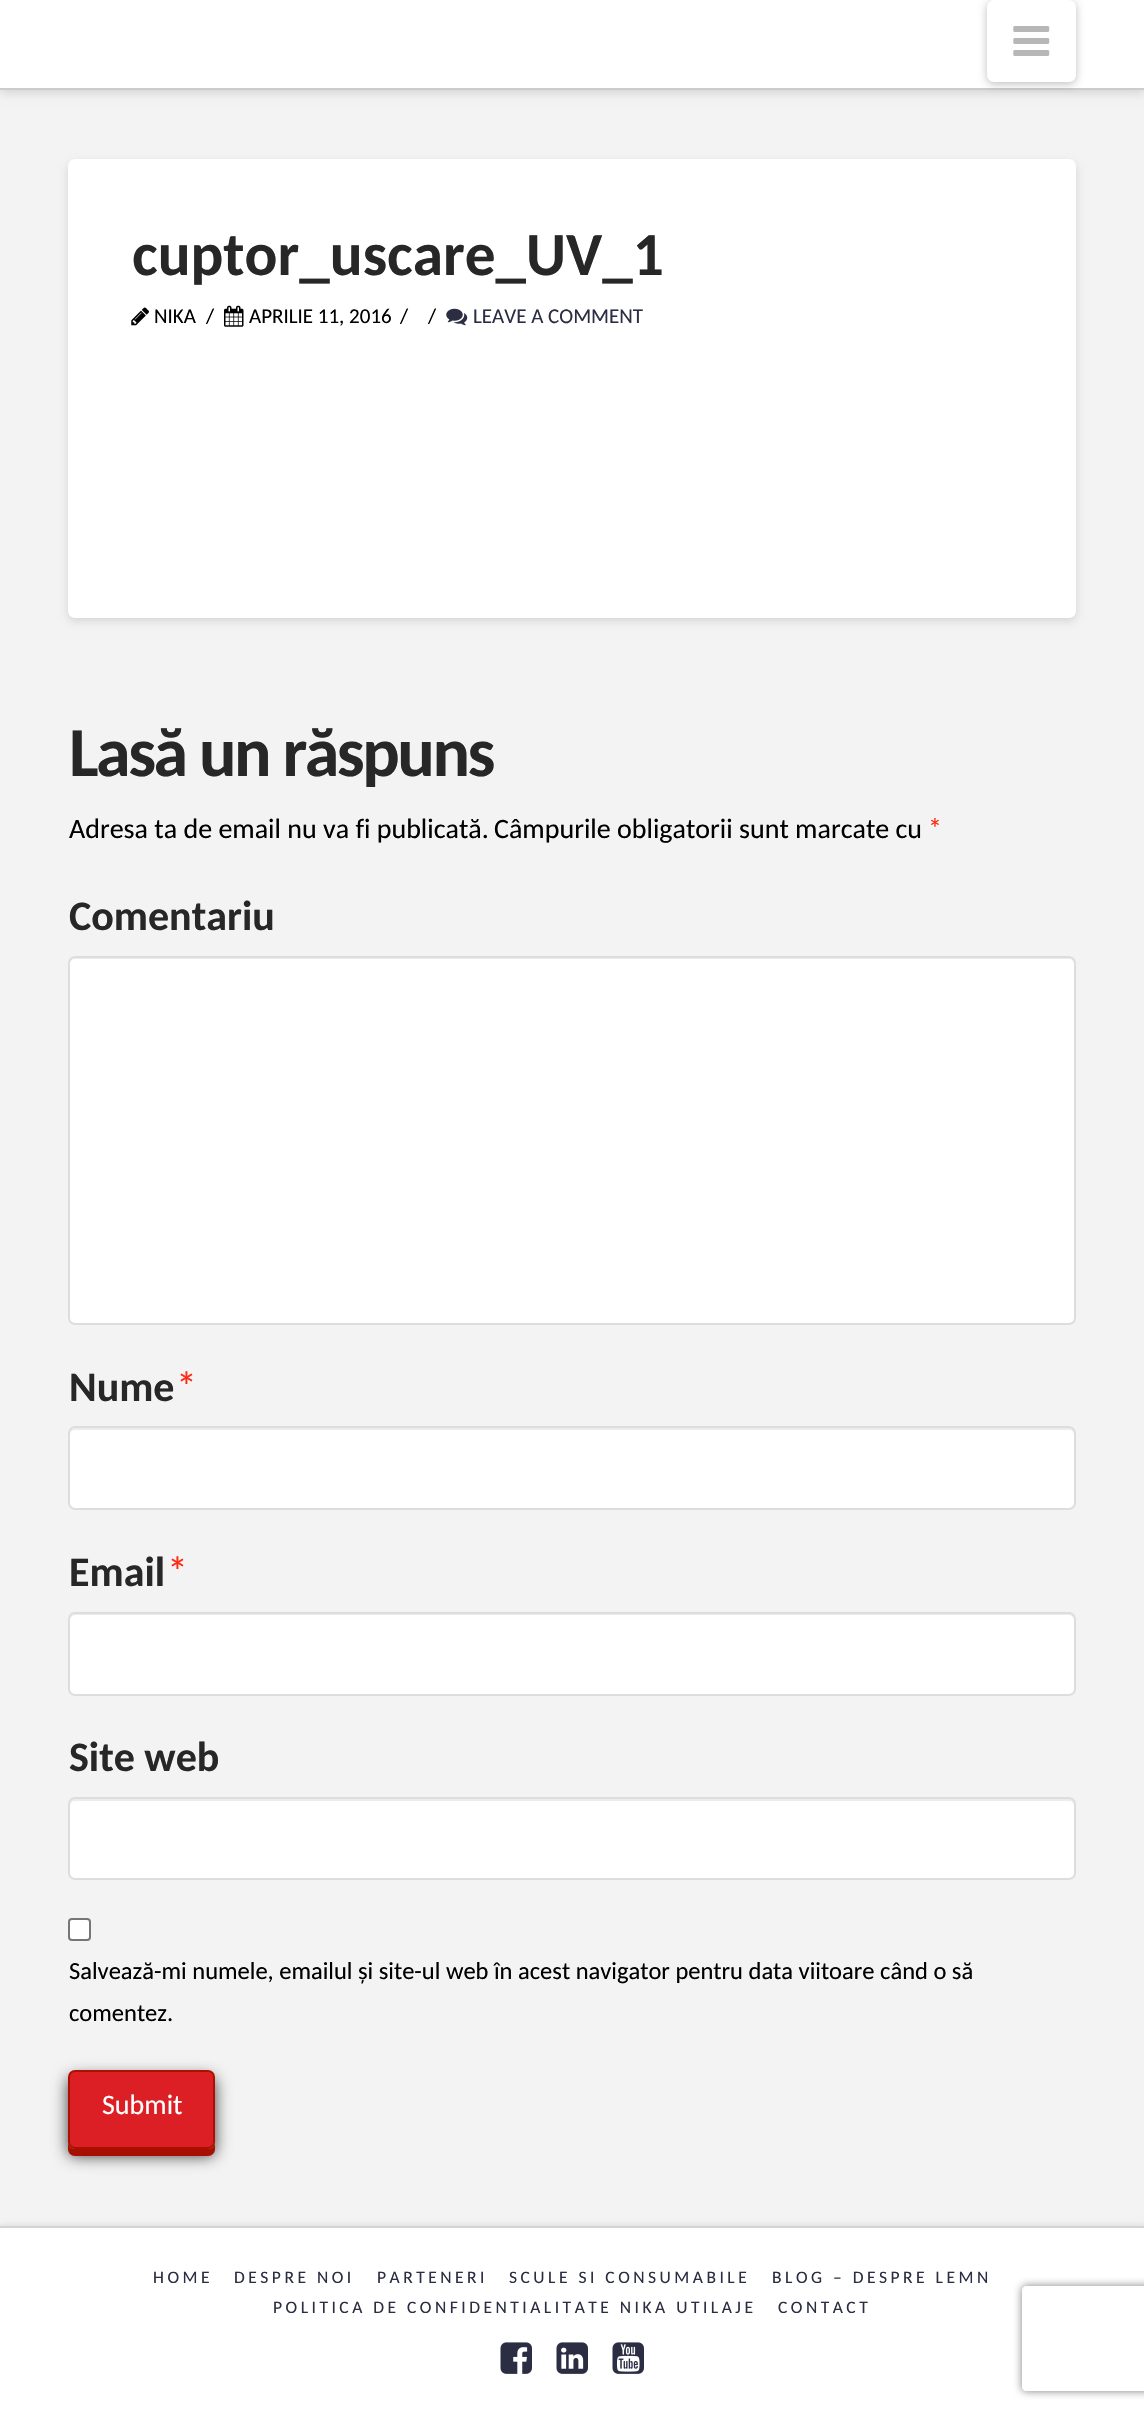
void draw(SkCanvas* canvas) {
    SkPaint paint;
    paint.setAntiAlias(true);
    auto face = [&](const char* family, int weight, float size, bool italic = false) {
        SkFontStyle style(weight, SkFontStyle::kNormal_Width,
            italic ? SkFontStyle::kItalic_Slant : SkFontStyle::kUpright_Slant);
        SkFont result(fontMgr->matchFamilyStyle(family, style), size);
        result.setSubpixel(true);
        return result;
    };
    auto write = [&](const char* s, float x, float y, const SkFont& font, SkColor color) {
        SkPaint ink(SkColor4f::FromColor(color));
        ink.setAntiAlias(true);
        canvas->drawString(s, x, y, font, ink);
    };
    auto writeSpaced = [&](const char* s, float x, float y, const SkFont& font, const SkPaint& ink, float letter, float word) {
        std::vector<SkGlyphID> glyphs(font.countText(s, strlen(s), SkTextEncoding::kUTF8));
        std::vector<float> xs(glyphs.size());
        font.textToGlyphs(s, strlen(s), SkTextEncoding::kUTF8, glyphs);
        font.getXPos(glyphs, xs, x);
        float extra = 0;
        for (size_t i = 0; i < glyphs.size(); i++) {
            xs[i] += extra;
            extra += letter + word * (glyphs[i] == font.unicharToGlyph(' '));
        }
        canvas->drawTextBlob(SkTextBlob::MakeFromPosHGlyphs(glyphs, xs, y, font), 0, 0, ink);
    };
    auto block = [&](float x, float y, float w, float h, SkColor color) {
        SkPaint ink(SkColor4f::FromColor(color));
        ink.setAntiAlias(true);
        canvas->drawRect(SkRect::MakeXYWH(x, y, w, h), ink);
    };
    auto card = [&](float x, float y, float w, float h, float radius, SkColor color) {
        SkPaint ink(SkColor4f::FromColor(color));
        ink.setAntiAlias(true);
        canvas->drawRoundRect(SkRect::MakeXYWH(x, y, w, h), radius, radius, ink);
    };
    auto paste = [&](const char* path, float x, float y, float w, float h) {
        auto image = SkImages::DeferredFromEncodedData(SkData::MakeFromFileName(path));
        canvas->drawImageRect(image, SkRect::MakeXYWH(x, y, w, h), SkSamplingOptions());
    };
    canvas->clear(SkColorSetRGB(243, 243, 243));
    paint.setColor(SkColorSetARGB(33, 0, 0, 0));
    paint.setMaskFilter(SkMaskFilter::MakeBlur(kNormal_SkBlurStyle, 4.5f));
    canvas->drawRect(SkRect::MakeXYWH(0, -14, 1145, 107), paint);
    paint.setMaskFilter(nullptr);
    block(0, 0, 1144, 88, SK_ColorWHITE);
    block(0, 88, 1144, 2, SkColorSetRGB(204, 204, 204));
    paint.setColor(SkColorSetARGB(64, 0, 0, 0));
    paint.setMaskFilter(SkMaskFilter::MakeBlur(kNormal_SkBlurStyle, 4.5f));
    canvas->drawRoundRect(SkRect::MakeXYWH(987, 2, 89, 82), 7, 7, paint);
    paint.setMaskFilter(nullptr);
    card(987, 0, 89, 82, 7, SK_ColorWHITE);
    paste("pic1.png", 1013, 26, 37, 30);
    paint.setColor(SkColorSetARGB(33, 0, 0, 0));
    paint.setMaskFilter(SkMaskFilter::MakeBlur(kNormal_SkBlurStyle, 4.5f));
    canvas->drawRoundRect(SkRect::MakeXYWH(68, 163, 1008, 458), 7, 7, paint);
    paint.setMaskFilter(nullptr);
    card(68, 159, 1008, 459, 7, SK_ColorWHITE);
    auto kFont1 = face("Carlito", 700, 61.25f);
    write("cuptor_uscare_UV_1", 132, 275, kFont1, SkColorSetRGB(39, 39, 39));
    paste("pic2.png", 131, 307, 18, 19);
    auto kFont2 = face("Carlito", 400, 21);
    write("NIKA", 154, 323, kFont2, SK_ColorBLACK);
    write("/", 206, 323, kFont2, SK_ColorBLACK);
    paste("pic3.png", 224, 305, 20, 22);
    write("APRILIE 11, 2016", 249, 323, kFont2, SK_ColorBLACK);
    write("/", 400, 323, kFont2, SK_ColorBLACK);
    write("/", 428, 323, kFont2, SK_ColorBLACK);
    paste("pic4.png", 446, 308, 22, 18);
    write("LEAVE A COMMENT", 473, 323, kFont2, SkColorSetRGB(43, 45, 66));
    auto kFont3 = face("Carlito", 700, 70);
    paint.setColor(SkColorSetRGB(39, 39, 39));
    writeSpaced("Lasă un răspuns", 69, 776, kFont3, paint, -2.5f, 0);
    auto kFont4 = face("Carlito", 400, 28);
    write("Adresa ta de email nu va fi publicată.", 69, 838, kFont4, SK_ColorBLACK);
    write("Câmpurile obligatorii sunt marcate cu", 494, 838, kFont4, SK_ColorBLACK);
    write("*", 928, 838, kFont4, SkColorSetRGB(255, 42, 19));
    auto kFont5 = face("Carlito", 700, 42);
    write("Comentariu", 69, 930, kFont5, SkColorSetRGB(39, 39, 39));
    card(68, 956, 1008, 369, 7, SK_ColorWHITE);
    paint.setColor(SkColorSetRGB(236, 236, 236));
    canvas->drawPath(SkPathBuilder().moveTo(75, 959).lineTo(1069, 959).cubicTo(1072, 959, 1074, 961, 1074, 964).lineTo(1074, 1321).cubicTo(1075, 1320, 1075, 1319, 1075, 1318).lineTo(1075, 962).cubicTo(1075, 959, 1073, 957, 1070, 957).lineTo(75, 957).cubicTo(72, 957, 70, 959, 70, 962).lineTo(70, 964).cubicTo(70, 961, 72, 959, 75, 959).close().detach(), paint);
    paint.setStyle(SkPaint::kStroke_Style);
    paint.setStrokeWidth(2);
    paint.setColor(SkColorSetRGB(221, 221, 221));
    canvas->drawRoundRect(SkRect::MakeXYWH(69, 957, 1006, 367), 6, 6, paint);
    write("Nume", 69, 1401, kFont5, SkColorSetRGB(39, 39, 39));
    auto kFont6 = face("Carlito", 400, 42);
    write("*", 176, 1401, kFont6, SkColorSetRGB(255, 42, 19));
    card(68, 1426, 1008, 84, 7, SK_ColorWHITE);
    paint.setStyle(SkPaint::kFill_Style);
    paint.setColor(SkColorSetRGB(236, 236, 236));
    canvas->drawPath(SkPathBuilder().moveTo(75, 1430).lineTo(1069, 1430).cubicTo(1072, 1430, 1074, 1432, 1074, 1435).lineTo(1074, 1505).lineTo(1073, 1508).cubicTo(1074, 1507, 1075, 1505, 1075, 1504).lineTo(1075, 1433).cubicTo(1075, 1430, 1073, 1428, 1070, 1428).lineTo(75, 1428).cubicTo(72, 1428, 70, 1430, 70, 1433).lineTo(70, 1435).cubicTo(70, 1432, 72, 1430, 75, 1430).close().detach(), paint);
    paint.setStyle(SkPaint::kStroke_Style);
    paint.setColor(SkColorSetRGB(221, 221, 221));
    canvas->drawRoundRect(SkRect::MakeXYWH(69, 1427, 1006, 82), 6, 6, paint);
    write("Email", 69, 1586, kFont5, SkColorSetRGB(39, 39, 39));
    write("*", 167, 1586, kFont6, SkColorSetRGB(255, 42, 19));
    card(68, 1612, 1008, 84, 7, SK_ColorWHITE);
    paint.setStyle(SkPaint::kFill_Style);
    paint.setColor(SkColorSetRGB(236, 236, 236));
    canvas->drawPath(SkPathBuilder().moveTo(75, 1615).lineTo(1069, 1615).cubicTo(1072, 1615, 1074, 1618, 1074, 1620).lineTo(1074, 1690).lineTo(1074, 1693).cubicTo(1074, 1692, 1075, 1690, 1075, 1689).lineTo(1075, 1619).cubicTo(1075, 1616, 1073, 1614, 1070, 1614).lineTo(75, 1614).cubicTo(72, 1614, 70, 1616, 70, 1619).lineTo(70, 1620).cubicTo(70, 1618, 72, 1615, 75, 1615).close().detach(), paint);
    paint.setStyle(SkPaint::kStroke_Style);
    paint.setColor(SkColorSetRGB(221, 221, 221));
    canvas->drawRoundRect(SkRect::MakeXYWH(69, 1613, 1006, 82), 6, 6, paint);
    write("Site web", 69, 1771, kFont5, SkColorSetRGB(39, 39, 39));
    card(68, 1797, 1008, 83, 7, SK_ColorWHITE);
    paint.setStyle(SkPaint::kFill_Style);
    paint.setColor(SkColorSetRGB(236, 236, 236));
    canvas->drawPath(SkPathBuilder().moveTo(75, 1801).lineTo(1069, 1801).cubicTo(1072, 1801, 1074, 1803, 1074, 1806).lineTo(1074, 1874).lineTo(1074, 1877).cubicTo(1074, 1876, 1075, 1874, 1075, 1873).lineTo(1075, 1804).cubicTo(1075, 1801, 1073, 1799, 1070, 1799).lineTo(75, 1799).cubicTo(72, 1799, 70, 1801, 70, 1804).lineTo(70, 1806).cubicTo(70, 1803, 72, 1801, 75, 1801).close().detach(), paint);
    paint.setStyle(SkPaint::kStroke_Style);
    paint.setColor(SkColorSetRGB(221, 221, 221));
    canvas->drawRoundRect(SkRect::MakeXYWH(69, 1798, 1006, 81), 6, 6, paint);
    paint.setStyle(SkPaint::kFill_Style);
    paint.setColor(SK_ColorWHITE);
    canvas->drawRoundRect(SkRect::MakeXYWH(69, 1919, 21, 21), 3, 3, paint);
    paint.setStyle(SkPaint::kStroke_Style);
    paint.setColor(SkColorSetRGB(118, 118, 118));
    canvas->drawRoundRect(SkRect::MakeXYWH(69, 1919, 21, 21), 3, 3, paint);
    auto kFont7 = face("Carlito", 400, 24.5f);
    write("Salvează-mi numele, emailul și site-ul web în acest navigator pentru data viitoare când o să", 69, 1979, kFont7, SK_ColorBLACK);
    write("comentez.", 69, 2021, kFont7, SK_ColorBLACK);
    paint.setStyle(SkPaint::kFill_Style);
    paint.setColor(SkColorSetARGB(191, 0, 0, 0));
    paint.setMaskFilter(SkMaskFilter::MakeBlur(kNormal_SkBlurStyle, 8));
    canvas->drawRoundRect(SkRect::MakeXYWH(68, 2077, 147, 79), 7, 7, paint);
    paint.setMaskFilter(nullptr);
    paint.setColor(SkColorSetRGB(167, 16, 0));
    canvas->drawPath(SkPathBuilder().moveTo(68, 2082).lineTo(68, 2149).cubicTo(68, 2153, 71, 2156, 75, 2156).lineTo(208, 2156).cubicTo(212, 2156, 215, 2153, 215, 2149).lineTo(215, 2144).cubicTo(214, 2147, 211, 2149, 208, 2149).lineTo(75, 2149).cubicTo(71, 2149, 68, 2146, 68, 2142).close().detach(), paint);
    paint.setColor(SkColorSetRGB(219, 31, 37));
    canvas->drawRoundRect(SkRect::MakeXYWH(69, 2071, 145, 77), 6, 6, paint);
    paint.setStyle(SkPaint::kStroke_Style);
    paint.setColor(SkColorSetRGB(172, 17, 0));
    canvas->drawRoundRect(SkRect::MakeXYWH(69, 2071, 145, 77), 6, 6, paint);
    write("Submit", 102, 2114, kFont4, SK_ColorWHITE);
    paint.setStyle(SkPaint::kFill_Style);
    paint.setColor(SkColorSetARGB(18, 0, 0, 0));
    paint.setMaskFilter(SkMaskFilter::MakeBlur(kNormal_SkBlurStyle, 2));
    canvas->drawRect(SkRect::MakeXYWH(0, 2224, 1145, 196), paint);
    paint.setMaskFilter(nullptr);
    block(0, 2228, 1144, 186, SK_ColorWHITE);
    block(0, 2226, 1144, 2, SkColorSetRGB(212, 212, 212));
    auto kFont8 = face("Carlito", 400, 17.5f);
    paint.setColor(SkColorSetRGB(43, 45, 66));
    writeSpaced("HOME", 153, 2283, kFont8, paint, 3.5f, 0);
    writeSpaced("DESPRE NOI", 234, 2283, kFont8, paint, 3.5f, 0);
    writeSpaced("PARTENERI", 377, 2283, kFont8, paint, 3.5f, 0);
    writeSpaced("SCULE SI CONSUMABILE", 509, 2283, kFont8, paint, 3.5f, 0);
    writeSpaced("BLOG – DESPRE LEMN", 772, 2283, kFont8, paint, 3.5f, 0);
    writeSpaced("POLITICA DE CONFIDENTIALITATE NIKA UTILAJE", 273, 2313, kFont8, paint, 3.5f, 0);
    writeSpaced("CONTACT", 778, 2313, kFont8, paint, 3.5f, 0);
    paste("pic5.png", 500, 2342, 32, 32);
    paste("pic6.png", 556, 2342, 32, 32);
    paste("pic7.png", 612, 2342, 32, 32);
    canvas->save();
    canvas->clipPath(SkPathBuilder(SkPathFillType::kEvenOdd).moveTo(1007, 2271).lineTo(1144, 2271).lineTo(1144, 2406).lineTo(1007, 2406).close().moveTo(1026, 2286).lineTo(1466, 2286).cubicTo(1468, 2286, 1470, 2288, 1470, 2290).lineTo(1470, 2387).cubicTo(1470, 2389, 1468, 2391, 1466, 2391).lineTo(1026, 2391).cubicTo(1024, 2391, 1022, 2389, 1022, 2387).lineTo(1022, 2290).cubicTo(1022, 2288, 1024, 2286, 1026, 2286).close().detach(), true);
    paint.setColor(SkColorSetRGB(128, 128, 128));
    paint.setMaskFilter(SkMaskFilter::MakeBlur(kNormal_SkBlurStyle, 4.5f));
    canvas->drawRoundRect(SkRect::MakeXYWH(1022, 2286, 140, 105), 4, 4, paint);
    paint.setMaskFilter(nullptr);
    canvas->restore();
}
